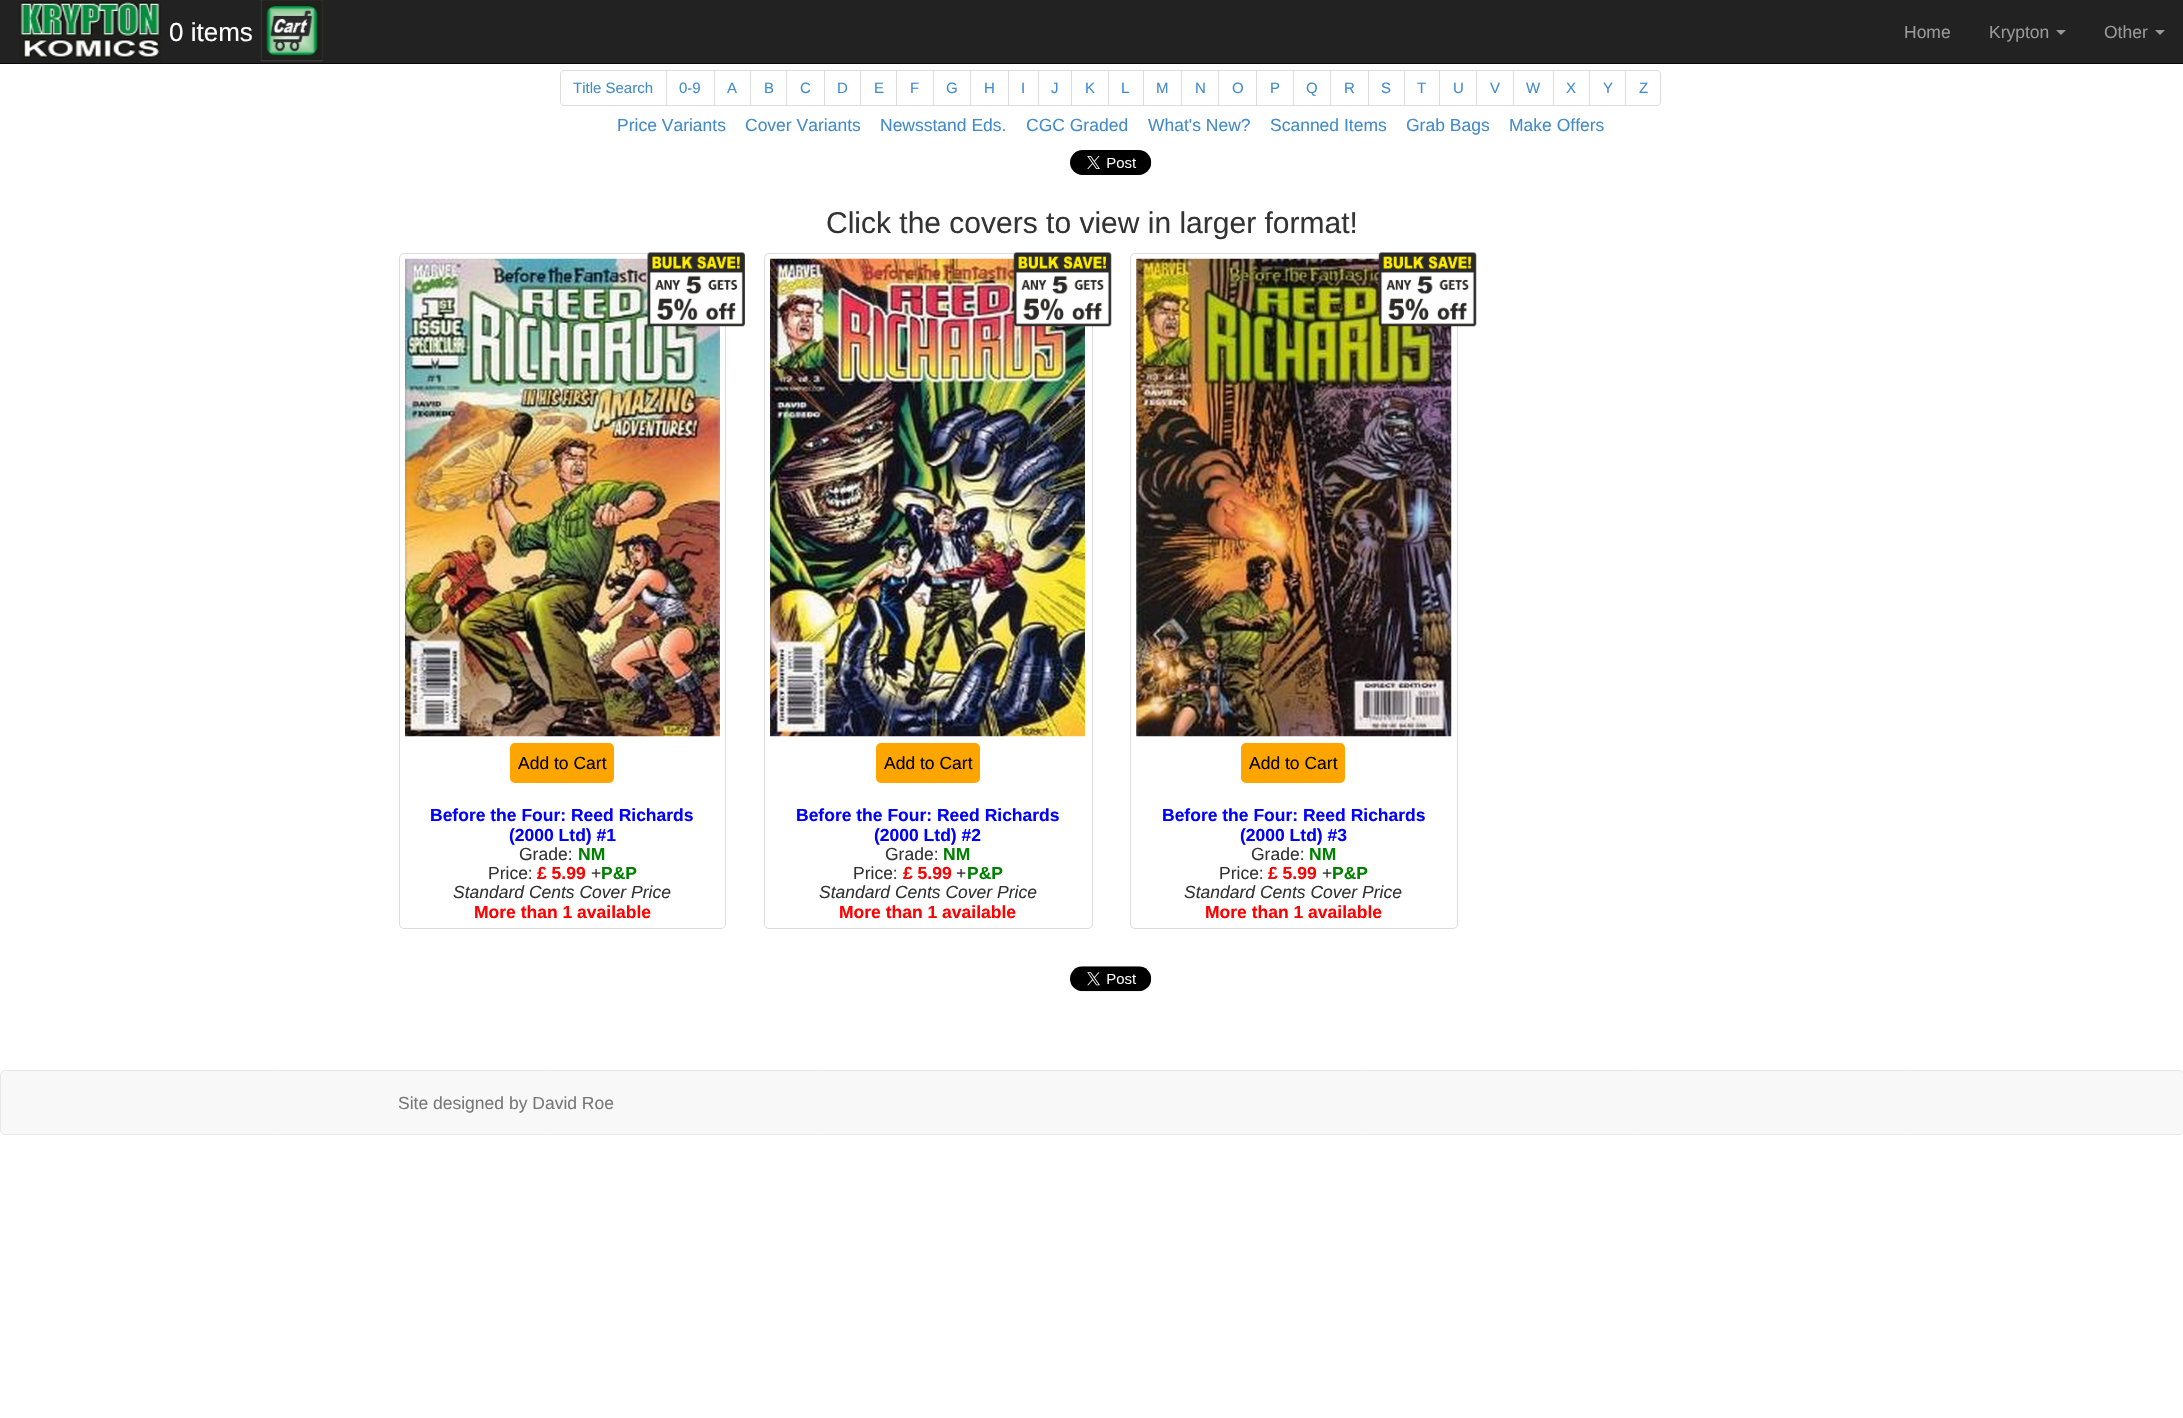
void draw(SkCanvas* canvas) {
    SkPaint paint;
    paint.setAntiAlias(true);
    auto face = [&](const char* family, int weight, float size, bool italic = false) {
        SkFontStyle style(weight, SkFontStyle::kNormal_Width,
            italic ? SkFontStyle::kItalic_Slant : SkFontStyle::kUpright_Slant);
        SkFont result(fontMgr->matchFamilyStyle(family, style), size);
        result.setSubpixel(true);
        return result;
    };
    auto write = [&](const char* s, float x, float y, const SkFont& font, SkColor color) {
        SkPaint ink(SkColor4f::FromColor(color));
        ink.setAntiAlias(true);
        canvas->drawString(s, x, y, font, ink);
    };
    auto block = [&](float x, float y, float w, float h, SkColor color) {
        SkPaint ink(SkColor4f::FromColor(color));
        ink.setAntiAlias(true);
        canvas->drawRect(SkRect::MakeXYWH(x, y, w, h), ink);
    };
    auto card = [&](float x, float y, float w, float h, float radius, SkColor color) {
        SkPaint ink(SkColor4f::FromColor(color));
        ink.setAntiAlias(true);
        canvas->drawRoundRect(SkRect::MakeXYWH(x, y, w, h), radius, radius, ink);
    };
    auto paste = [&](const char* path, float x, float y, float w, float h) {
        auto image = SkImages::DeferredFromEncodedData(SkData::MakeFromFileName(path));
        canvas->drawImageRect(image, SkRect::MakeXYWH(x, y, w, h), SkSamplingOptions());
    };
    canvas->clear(SK_ColorWHITE);
    block(0, 0, 2183, 63, SkColorSetRGB(34, 34, 34));
    block(0, 63, 2183, 1, SkColorSetRGB(8, 8, 8));
    paste("pic1.png", 19, 0, 143, 61);
    auto kFont1 = face("Liberation Sans", 400, 26);
    write("0 items", 169, 41, kFont1, SK_ColorWHITE);
    paste("pic2.png", 260, 0, 63, 62);
    auto kFont2 = face("Liberation Sans", 400, 17.5f);
    write("Home", 1904, 38, kFont2, SkColorSetRGB(153, 153, 153));
    write("Krypton", 1989, 38, kFont2, SkColorSetRGB(153, 153, 153));
    paint.setColor(SkColorSetRGB(153, 153, 153));
    canvas->drawPath(SkPathBuilder().moveTo(2056, 30).lineTo(2066, 30).lineTo(2061, 35).close().detach(), paint);
    write("Other", 2104, 38, kFont2, SkColorSetRGB(153, 153, 153));
    canvas->drawPath(SkPathBuilder().moveTo(2155, 30).lineTo(2165, 30).lineTo(2160, 35).close().detach(), paint);
    paint.setStyle(SkPaint::kStroke_Style);
    paint.setStrokeWidth(1);
    paint.setColor(SkColorSetRGB(221, 221, 221));
    canvas->drawPath(SkPathBuilder().moveTo(564, 70.5f).lineTo(667.5f, 70.5f).lineTo(667.5f, 105.5f).lineTo(564, 105.5f).cubicTo(562, 105.5f, 560.5f, 104, 560.5f, 102).lineTo(560.5f, 74).cubicTo(560.5f, 72, 562, 70.5f, 564, 70.5f).close().detach(), paint);
    auto kFont3 = face("Liberation Sans", 400, 15);
    write("Title Search", 573, 93, kFont3, SkColorSetRGB(66, 139, 202));
    block(667, 71, 1, 34, SK_ColorWHITE);
    canvas->drawRect(SkRect::MakeXYWH(666.5f, 70.5f, 48, 35), paint);
    write("0-9", 679, 93, kFont3, SkColorSetRGB(66, 139, 202));
    canvas->drawRect(SkRect::MakeXYWH(714.5f, 70.5f, 36, 35), paint);
    write("A", 727, 93, kFont3, SkColorSetRGB(66, 139, 202));
    canvas->drawRect(SkRect::MakeXYWH(750.5f, 70.5f, 37, 35), paint);
    write("B", 764, 93, kFont3, SkColorSetRGB(66, 139, 202));
    block(787, 71, 1, 34, SK_ColorWHITE);
    canvas->drawRect(SkRect::MakeXYWH(786.5f, 70.5f, 38, 35), paint);
    write("C", 800, 93, kFont3, SkColorSetRGB(66, 139, 202));
    canvas->drawRect(SkRect::MakeXYWH(824.5f, 70.5f, 36, 35), paint);
    write("D", 837, 93, kFont3, SkColorSetRGB(66, 139, 202));
    canvas->drawRect(SkRect::MakeXYWH(860.5f, 70.5f, 37, 35), paint);
    write("E", 874, 93, kFont3, SkColorSetRGB(66, 139, 202));
    block(897, 71, 1, 34, SK_ColorWHITE);
    canvas->drawRect(SkRect::MakeXYWH(896.5f, 70.5f, 37, 35), paint);
    write("F", 910, 93, kFont3, SkColorSetRGB(66, 139, 202));
    canvas->drawRect(SkRect::MakeXYWH(933.5f, 70.5f, 37, 35), paint);
    write("G", 946, 93, kFont3, SkColorSetRGB(66, 139, 202));
    canvas->drawRect(SkRect::MakeXYWH(970.5f, 70.5f, 38, 35), paint);
    write("H", 984, 93, kFont3, SkColorSetRGB(66, 139, 202));
    canvas->drawRect(SkRect::MakeXYWH(1008.5f, 70.5f, 30, 35), paint);
    write("I", 1021, 93, kFont3, SkColorSetRGB(66, 139, 202));
    canvas->drawRect(SkRect::MakeXYWH(1038.5f, 70.5f, 34, 35), paint);
    write("J", 1051, 93, kFont3, SkColorSetRGB(66, 139, 202));
    block(1072, 71, 1, 34, SK_ColorWHITE);
    canvas->drawRect(SkRect::MakeXYWH(1071.5f, 70.5f, 37, 35), paint);
    write("K", 1085, 93, kFont3, SkColorSetRGB(66, 139, 202));
    canvas->drawRect(SkRect::MakeXYWH(1108.5f, 70.5f, 35, 35), paint);
    write("L", 1121, 93, kFont3, SkColorSetRGB(66, 139, 202));
    canvas->drawRect(SkRect::MakeXYWH(1143.5f, 70.5f, 39, 35), paint);
    write("M", 1156, 93, kFont3, SkColorSetRGB(66, 139, 202));
    block(1182, 71, 1, 34, SK_ColorWHITE);
    canvas->drawRect(SkRect::MakeXYWH(1181.5f, 70.5f, 37, 35), paint);
    write("N", 1195, 93, kFont3, SkColorSetRGB(66, 139, 202));
    canvas->drawRect(SkRect::MakeXYWH(1218.5f, 70.5f, 39, 35), paint);
    write("O", 1232, 93, kFont3, SkColorSetRGB(66, 139, 202));
    block(1257, 71, 1, 34, SK_ColorWHITE);
    canvas->drawRect(SkRect::MakeXYWH(1256.5f, 70.5f, 37, 35), paint);
    write("P", 1270, 93, kFont3, SkColorSetRGB(66, 139, 202));
    canvas->drawRect(SkRect::MakeXYWH(1293.5f, 70.5f, 37, 35), paint);
    write("Q", 1306, 93, kFont3, SkColorSetRGB(66, 139, 202));
    canvas->drawRect(SkRect::MakeXYWH(1330.5f, 70.5f, 38, 35), paint);
    write("R", 1344, 93, kFont3, SkColorSetRGB(66, 139, 202));
    canvas->drawRect(SkRect::MakeXYWH(1368.5f, 70.5f, 36, 35), paint);
    write("S", 1381, 93, kFont3, SkColorSetRGB(66, 139, 202));
    canvas->drawRect(SkRect::MakeXYWH(1404.5f, 70.5f, 35, 35), paint);
    write("T", 1417, 93, kFont3, SkColorSetRGB(66, 139, 202));
    canvas->drawRect(SkRect::MakeXYWH(1439.5f, 70.5f, 38, 35), paint);
    write("U", 1453, 93, kFont3, SkColorSetRGB(66, 139, 202));
    block(1477, 71, 1, 34, SK_ColorWHITE);
    canvas->drawRect(SkRect::MakeXYWH(1476.5f, 70.5f, 37, 35), paint);
    write("V", 1490, 93, kFont3, SkColorSetRGB(66, 139, 202));
    canvas->drawRect(SkRect::MakeXYWH(1513.5f, 70.5f, 40, 35), paint);
    write("W", 1526, 93, kFont3, SkColorSetRGB(66, 139, 202));
    canvas->drawRect(SkRect::MakeXYWH(1553.5f, 70.5f, 36, 35), paint);
    write("X", 1566, 93, kFont3, SkColorSetRGB(66, 139, 202));
    canvas->drawRect(SkRect::MakeXYWH(1589.5f, 70.5f, 36, 35), paint);
    write("Y", 1603, 93, kFont3, SkColorSetRGB(66, 139, 202));
    paint.setStyle(SkPaint::kFill_Style);
    paint.setColor(SK_ColorWHITE);
    canvas->drawPath(SkPathBuilder().moveTo(1625.5f, 70.5f).lineTo(1657, 70.5f).cubicTo(1659, 70.5f, 1660.5f, 72, 1660.5f, 74).lineTo(1660.5f, 102).cubicTo(1660.5f, 104, 1659, 105.5f, 1657, 105.5f).lineTo(1625.5f, 105.5f).close().detach(), paint);
    paint.setStyle(SkPaint::kStroke_Style);
    paint.setColor(SkColorSetRGB(221, 221, 221));
    canvas->drawPath(SkPathBuilder().moveTo(1625.5f, 70.5f).lineTo(1657, 70.5f).cubicTo(1659, 70.5f, 1660.5f, 72, 1660.5f, 74).lineTo(1660.5f, 102).cubicTo(1660.5f, 104, 1659, 105.5f, 1657, 105.5f).lineTo(1625.5f, 105.5f).close().detach(), paint);
    write("Z", 1639, 93, kFont3, SkColorSetRGB(66, 139, 202));
    write("Price Variants", 617, 131, kFont2, SkColorSetRGB(66, 139, 202));
    write("Cover Variants", 745, 131, kFont2, SkColorSetRGB(66, 139, 202));
    write("Newsstand Eds.", 880, 131, kFont2, SkColorSetRGB(66, 139, 202));
    write("CGC Graded", 1026, 131, kFont2, SkColorSetRGB(66, 139, 202));
    write("What's New?", 1148, 131, kFont2, SkColorSetRGB(66, 139, 202));
    write("Scanned Items", 1270, 131, kFont2, SkColorSetRGB(66, 139, 202));
    write("Grab Bags", 1406, 131, kFont2, SkColorSetRGB(66, 139, 202));
    write("Make Offers", 1509, 131, kFont2, SkColorSetRGB(66, 139, 202));
    paste("pic3.png", 1070, 150, 82, 25);
    auto kFont4 = face("Liberation Sans", 400, 30);
    write("Click the covers to view in larger format!", 826, 233, kFont4, SkColorSetRGB(51, 51, 51));
    canvas->drawRoundRect(SkRect::MakeXYWH(399.5f, 253.5f, 326, 675), 4.5f, 4.5f, paint);
    paste("pic5.png", 405, 258, 315, 479);
    paste("pic4.png", 647, 252, 98, 75);
    card(510, 743, 104, 40, 5, SkColorSetRGB(255, 165, 0));
    write("Add to Cart", 518, 769, kFont2, SK_ColorBLACK);
    auto kFont5 = face("Liberation Sans", 700, 17.5f);
    write("Before the Four: Reed Richards", 430, 821, kFont5, SkColorSetRGB(0, 0, 255));
    write("(2000 Ltd) #1", 509, 841, kFont5, SkColorSetRGB(0, 0, 255));
    write("Grade:", 519, 860, kFont2, SkColorSetRGB(51, 51, 51));
    write("NM", 578, 860, kFont5, SkColorSetRGB(0, 128, 0));
    write("Price:", 488, 879, kFont2, SkColorSetRGB(51, 51, 51));
    write("£ 5.99", 537, 879, kFont5, SkColorSetRGB(255, 0, 0));
    write("+", 591, 879, kFont2, SkColorSetRGB(51, 51, 51));
    write("P&P", 601, 879, kFont5, SkColorSetRGB(0, 128, 0));
    auto kFont6 = face("Liberation Sans", 400, 17.5f, true);
    write("Standard Cents Cover Price", 453, 898, kFont6, SkColorSetRGB(51, 51, 51));
    write("More than 1 available", 474, 918, kFont5, SkColorSetRGB(255, 0, 0));
    canvas->drawRoundRect(SkRect::MakeXYWH(764.5f, 253.5f, 328, 675), 4.5f, 4.5f, paint);
    paste("pic7.png", 770, 258, 315, 479);
    paste("pic6.png", 1013, 252, 99, 75);
    card(876, 743, 104, 40, 5, SkColorSetRGB(255, 165, 0));
    write("Add to Cart", 884, 769, kFont2, SK_ColorBLACK);
    write("Before the Four: Reed Richards", 796, 821, kFont5, SkColorSetRGB(0, 0, 255));
    write("(2000 Ltd) #2", 874, 841, kFont5, SkColorSetRGB(0, 0, 255));
    write("Grade:", 885, 860, kFont2, SkColorSetRGB(51, 51, 51));
    write("NM", 943, 860, kFont5, SkColorSetRGB(0, 128, 0));
    write("Price:", 853, 879, kFont2, SkColorSetRGB(51, 51, 51));
    write("£ 5.99", 903, 879, kFont5, SkColorSetRGB(255, 0, 0));
    write("+", 956, 879, kFont2, SkColorSetRGB(51, 51, 51));
    write("P&P", 967, 879, kFont5, SkColorSetRGB(0, 128, 0));
    write("Standard Cents Cover Price", 819, 898, kFont6, SkColorSetRGB(51, 51, 51));
    write("More than 1 available", 839, 918, kFont5, SkColorSetRGB(255, 0, 0));
    canvas->drawRoundRect(SkRect::MakeXYWH(1130.5f, 253.5f, 327, 675), 4.5f, 4.5f, paint);
    paste("pic9.png", 1136, 258, 316, 479);
    paste("pic8.png", 1378, 252, 99, 75);
    card(1241, 743, 104, 40, 5, SkColorSetRGB(255, 165, 0));
    write("Add to Cart", 1249, 769, kFont2, SK_ColorBLACK);
    write("Before the Four: Reed Richards", 1162, 821, kFont5, SkColorSetRGB(0, 0, 255));
    write("(2000 Ltd) #3", 1240, 841, kFont5, SkColorSetRGB(0, 0, 255));
    write("Grade:", 1251, 860, kFont2, SkColorSetRGB(51, 51, 51));
    write("NM", 1309, 860, kFont5, SkColorSetRGB(0, 128, 0));
    write("Price:", 1219, 879, kFont2, SkColorSetRGB(51, 51, 51));
    write("£ 5.99", 1268, 879, kFont5, SkColorSetRGB(255, 0, 0));
    write("+", 1322, 879, kFont2, SkColorSetRGB(51, 51, 51));
    write("P&P", 1332, 879, kFont5, SkColorSetRGB(0, 128, 0));
    write("Standard Cents Cover Price", 1184, 898, kFont6, SkColorSetRGB(51, 51, 51));
    write("More than 1 available", 1205, 918, kFont5, SkColorSetRGB(255, 0, 0));
    paste("pic10.png", 1070, 966, 82, 26);
    paint.setStyle(SkPaint::kFill_Style);
    paint.setColor(SkColorSetRGB(248, 248, 248));
    canvas->drawRoundRect(SkRect::MakeXYWH(0.5f, 1070.5f, 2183, 64), 4.5f, 4.5f, paint);
    paint.setStyle(SkPaint::kStroke_Style);
    paint.setColor(SkColorSetRGB(231, 231, 231));
    canvas->drawRoundRect(SkRect::MakeXYWH(0.5f, 1070.5f, 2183, 64), 4.5f, 4.5f, paint);
    write("Site designed by David Roe", 398, 1109, kFont2, SkColorSetRGB(119, 119, 119));
}
